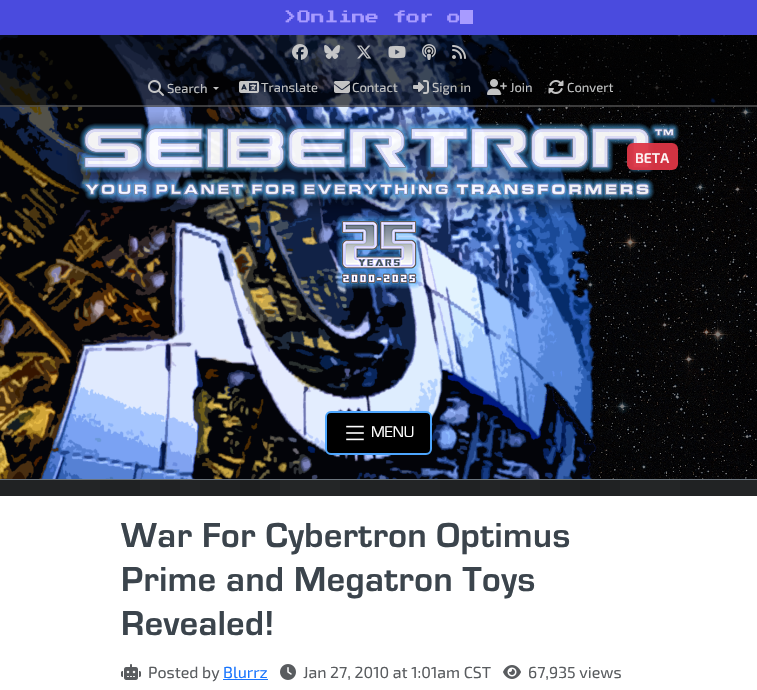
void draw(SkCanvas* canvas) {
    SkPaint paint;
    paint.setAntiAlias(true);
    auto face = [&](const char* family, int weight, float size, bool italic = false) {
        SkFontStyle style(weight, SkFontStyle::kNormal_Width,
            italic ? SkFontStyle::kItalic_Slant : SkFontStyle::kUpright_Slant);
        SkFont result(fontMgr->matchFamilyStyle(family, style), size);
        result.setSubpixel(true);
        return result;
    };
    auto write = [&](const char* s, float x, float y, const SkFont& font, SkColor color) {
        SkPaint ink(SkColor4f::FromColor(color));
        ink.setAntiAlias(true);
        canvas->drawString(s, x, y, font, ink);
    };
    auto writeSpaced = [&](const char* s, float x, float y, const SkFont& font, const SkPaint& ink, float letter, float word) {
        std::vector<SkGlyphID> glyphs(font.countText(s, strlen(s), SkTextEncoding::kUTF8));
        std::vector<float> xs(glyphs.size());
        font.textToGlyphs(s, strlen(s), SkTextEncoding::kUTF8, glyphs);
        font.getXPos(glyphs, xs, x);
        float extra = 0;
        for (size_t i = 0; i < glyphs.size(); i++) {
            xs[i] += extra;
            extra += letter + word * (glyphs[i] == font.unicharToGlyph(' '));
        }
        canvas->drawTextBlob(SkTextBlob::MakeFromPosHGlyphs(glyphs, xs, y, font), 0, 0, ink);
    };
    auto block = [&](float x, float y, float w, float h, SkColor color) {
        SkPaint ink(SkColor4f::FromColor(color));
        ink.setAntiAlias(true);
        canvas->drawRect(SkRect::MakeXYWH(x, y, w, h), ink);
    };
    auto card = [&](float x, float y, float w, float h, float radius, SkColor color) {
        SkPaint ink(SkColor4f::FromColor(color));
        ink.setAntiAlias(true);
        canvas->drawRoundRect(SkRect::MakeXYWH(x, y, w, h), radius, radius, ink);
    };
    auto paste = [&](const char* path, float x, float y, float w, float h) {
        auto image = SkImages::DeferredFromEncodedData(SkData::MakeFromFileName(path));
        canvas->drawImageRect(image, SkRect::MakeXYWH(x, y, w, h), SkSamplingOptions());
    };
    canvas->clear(SkColorSetRGB(74, 75, 222));
    auto kFont1 = face("Press Start 2P", 400, 13.6f);
    write(">Online for o", 284, 24, kFont1, SkColorSetRGB(168, 155, 255));
    block(460, 10, 13, 14, SkColorSetRGB(168, 155, 255));
    paste("pic1.png", 0, 35, 757, 444);
    block(0, 479, 757, 1, SkColorSetRGB(108, 117, 125));
    block(0, 35, 757, 72, SkColorSetARGB(166, 0, 0, 0));
    block(0, 105, 757, 2, SkColorSetARGB(89, 165, 165, 165));
    paste("pic2.png", 292, 44, 16, 16);
    paste("pic3.png", 324, 45, 16, 14);
    paste("pic4.png", 357, 45, 15, 14);
    paste("pic5.png", 388, 46, 18, 12);
    paste("pic6.png", 422, 44, 14, 16);
    paste("pic7.png", 452, 45, 14, 14);
    paste("pic8.png", 148, 80, 16, 16);
    auto kFont2 = face("Exo 2", 400, 13);
    write("Search", 167, 93, kFont2, SkColorSetRGB(194, 195, 195));
    paint.setColor(SkColorSetRGB(194, 194, 194));
    canvas->drawPath(SkPathBuilder().moveTo(213, 87).lineTo(219, 87).lineTo(216, 90).close().detach(), paint);
    paste("pic9.png", 239, 81, 20, 12);
    write("Translate", 261, 92, kFont2, SkColorSetRGB(194, 195, 195));
    paste("pic10.png", 334, 81, 16, 12);
    write("Contact", 352, 92, kFont2, SkColorSetRGB(194, 195, 195));
    paste("pic11.png", 413, 80, 16, 14);
    write("Sign in", 432, 92, kFont2, SkColorSetRGB(194, 195, 195));
    paste("pic12.png", 487, 79, 20, 16);
    write("Join", 510, 92, kFont2, SkColorSetRGB(194, 195, 195));
    paste("pic13.png", 548, 80, 16, 14);
    write("Convert", 567, 92, kFont2, SkColorSetRGB(194, 195, 195));
    paste("pic14.png", 67, 112, 612, 106);
    card(627, 143, 51, 27, 6, SkColorSetARGB(242, 220, 53, 69));
    auto kFont3 = face("Exo 2", 600, 14);
    write("BETA", 635, 163, kFont3, SkColorSetRGB(253, 245, 246));
    paste("pic15.png", 336, 215, 86, 74);
    paint.setColor(SK_ColorBLACK);
    canvas->drawRoundRect(SkRect::MakeXYWH(326, 412, 105, 42), 5, 5, paint);
    paint.setStyle(SkPaint::kStroke_Style);
    paint.setStrokeWidth(2);
    paint.setColor(SkColorSetRGB(77, 166, 255));
    canvas->drawRoundRect(SkRect::MakeXYWH(326, 412, 105, 42), 5, 5, paint);
    paste("pic16.png", 346, 425, 18, 16);
    auto kFont4 = face("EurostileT", 400, 16);
    write("MENU", 371, 437, kFont4, SK_ColorWHITE);
    paste("pic17.png", 0, 480, 757, 16);
    block(0, 496, 757, 194, SK_ColorWHITE);
    auto kFont5 = face("EurostileT", 700, 36);
    paint.setStyle(SkPaint::kFill_Style);
    paint.setColor(SkColorSetRGB(59, 68, 76));
    writeSpaced("War For Cybertron Optimus", 121, 547, kFont5, paint, 0.5f, 0);
    writeSpaced("Prime and Megatron Toys", 121, 591, kFont5, paint, 0.5f, 0);
    writeSpaced("Revealed!", 121, 635, kFont5, paint, 0.5f, 0);
    paste("pic18.png", 121, 664, 20, 16);
    auto kFont6 = face("Exo 2", 400, 16);
    write("Posted by", 148, 678, kFont6, SkColorSetRGB(89, 92, 95));
    write("Blurrz", 223, 678, kFont6, SkColorSetRGB(25, 117, 253));
    block(223, 679, 45, 1, SkColorSetRGB(25, 117, 253));
    paste("pic19.png", 280, 664, 16, 16);
    write("Jan 27, 2010 at 1:01am CST", 303, 678, kFont6, SkColorSetRGB(89, 92, 95));
    paste("pic20.png", 503, 665, 18, 14);
    write("67,935 views", 528, 678, kFont6, SkColorSetRGB(89, 92, 95));
}
